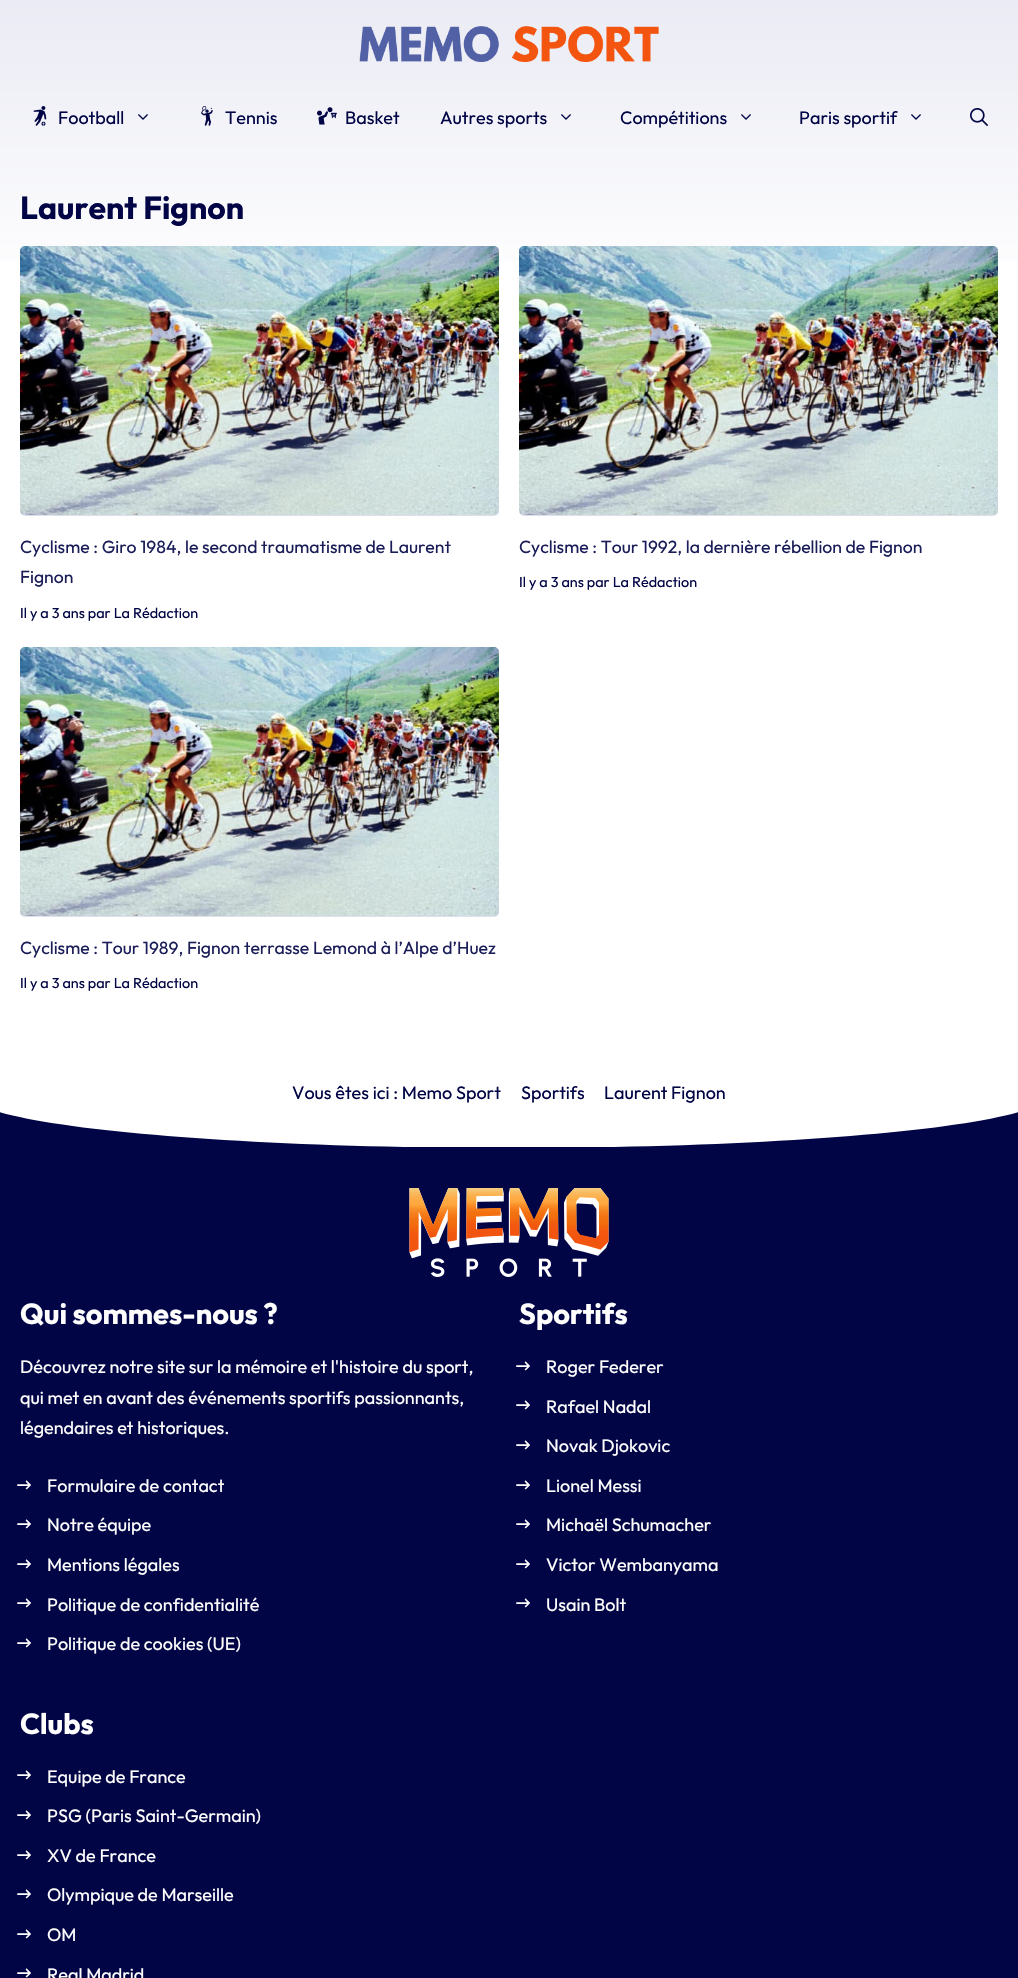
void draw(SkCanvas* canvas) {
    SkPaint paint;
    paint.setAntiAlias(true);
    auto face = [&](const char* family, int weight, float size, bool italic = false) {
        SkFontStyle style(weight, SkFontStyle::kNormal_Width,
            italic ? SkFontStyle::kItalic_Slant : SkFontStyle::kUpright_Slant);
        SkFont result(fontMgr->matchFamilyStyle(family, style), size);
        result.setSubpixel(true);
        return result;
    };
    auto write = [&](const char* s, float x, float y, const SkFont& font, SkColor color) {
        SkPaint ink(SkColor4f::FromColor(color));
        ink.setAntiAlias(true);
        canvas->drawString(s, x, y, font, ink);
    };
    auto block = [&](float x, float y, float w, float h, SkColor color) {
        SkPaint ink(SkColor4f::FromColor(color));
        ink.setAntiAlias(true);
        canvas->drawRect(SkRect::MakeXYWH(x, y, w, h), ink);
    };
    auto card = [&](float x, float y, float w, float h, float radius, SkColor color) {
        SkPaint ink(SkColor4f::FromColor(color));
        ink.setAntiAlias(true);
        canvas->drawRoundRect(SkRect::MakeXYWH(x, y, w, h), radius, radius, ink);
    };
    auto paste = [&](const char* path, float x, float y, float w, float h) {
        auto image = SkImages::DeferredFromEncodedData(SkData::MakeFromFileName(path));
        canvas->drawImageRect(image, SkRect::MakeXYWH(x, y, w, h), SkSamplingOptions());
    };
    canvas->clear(SK_ColorWHITE);
    {
        const SkColor colors[] = {SkColorSetRGB(234, 235, 244), SK_ColorWHITE};
        const float stops[] = {0, 0.14f};
        const SkPoint ends[] = {{509, 0}, {509, 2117}};
        paint.setShader(SkGradientShader::MakeLinear(ends, colors, stops, 2, SkTileMode::kClamp));
        paint.setAlpha(255);
    }
    canvas->drawRect(SkRect::MakeXYWH(0, 0, 1018, 261), paint);
    paste("pic1.png", 359, 26, 300, 36);
    paste("pic2.png", 33, 106, 14, 20);
    auto kFont1 = face("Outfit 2", 100, 18);
    write("Football", 58, 124, kFont1, SkColorSetRGB(1, 4, 69));
    paste("pic3.png", 138, 114, 10, 6);
    paste("pic4.png", 201, 106, 12, 20);
    write("Tennis", 225, 124, kFont1, SkColorSetRGB(1, 4, 69));
    paste("pic5.png", 317, 107, 20, 18);
    write("Basket", 345, 124, kFont1, SkColorSetRGB(1, 4, 69));
    write("Autres sports", 440, 124, kFont1, SkColorSetRGB(1, 4, 69));
    paste("pic3.png", 561, 114, 10, 6);
    write("Compétitions", 620, 124, kFont1, SkColorSetRGB(1, 4, 69));
    paste("pic3.png", 741, 114, 10, 6);
    write("Paris sportif", 799, 124, kFont1, SkColorSetRGB(1, 4, 69));
    paste("pic3.png", 911, 114, 10, 6);
    paste("pic6.png", 970, 108, 18, 18);
    auto kFont2 = face("Outfit", 100, 32);
    write("Laurent Fignon", 20, 219, kFont2, SkColorSetRGB(1, 4, 69));
    card(20, 246, 479, 270, 5, SkColorSetARGB(51, 83, 96, 164));
    paste("pic7.png", 20, 246, 479, 269);
    auto kFont3 = face("Outfit 2", 100, 17.6f);
    write("Cyclisme : Giro 1984, le second traumatisme de Laurent", 20, 553, kFont3, SkColorSetRGB(26, 29, 88));
    write("Fignon", 20, 583, kFont3, SkColorSetRGB(26, 29, 88));
    auto kFont4 = face("Outfit 2", 100, 14.4f);
    write("Il y a 3 ans par La Rédaction", 20, 618, kFont4, SkColorSetRGB(1, 4, 69));
    card(519, 246, 479, 270, 5, SkColorSetARGB(51, 83, 96, 164));
    paste("pic7.png", 519, 246, 479, 269);
    write("Cyclisme : Tour 1992, la dernière rébellion de Fignon", 519, 553, kFont3, SkColorSetRGB(26, 29, 88));
    write("Il y a 3 ans par La Rédaction", 519, 587, kFont4, SkColorSetRGB(1, 4, 69));
    card(20, 647, 479, 270, 5, SkColorSetRGB(221, 224, 237));
    paste("pic8.png", 20, 647, 479, 269);
    write("Cyclisme : Tour 1989, Fignon terrasse Lemond à l’Alpe d’Huez", 20, 954, kFont3, SkColorSetRGB(26, 29, 88));
    write("Il y a 3 ans par La Rédaction", 20, 988, kFont4, SkColorSetRGB(1, 4, 69));
    write("Vous êtes ici : Memo Sport", 292, 1099, kFont1, SkColorSetRGB(1, 4, 69));
    write("Sportifs", 521, 1099, kFont1, SkColorSetRGB(1, 4, 69));
    write("Laurent Fignon", 604, 1099, kFont1, SkColorSetRGB(1, 4, 69));
    block(0, 1112, 1018, 866, SkColorSetRGB(1, 4, 69));
    canvas->save();
    canvas->clipRect(SkRect::MakeXYWH(0, 1108, 1018, 39));
    paint.setShader(nullptr);
    paint.setColor(SK_ColorWHITE);
    canvas->drawPath(SkPathBuilder().moveTo(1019, 1112).lineTo(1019, 1108).lineTo(-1, 1108).lineTo(-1, 1112).cubicTo(71, 1133, 272, 1148, 509, 1148).cubicTo(746, 1148, 947, 1133, 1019, 1112).close().detach(), paint);
    canvas->restore();
    paste("pic9.png", 409, 1188, 200, 89);
    auto kFont5 = face("Outfit", 100, 29);
    write("Qui sommes-nous ?", 20, 1324, kFont5, SK_ColorWHITE);
    write("Découvrez notre site sur la mémoire et l'histoire du sport,", 20, 1373, kFont1, SK_ColorWHITE);
    write("qui met en avant des événements sportifs passionnants,", 20, 1404, kFont1, SK_ColorWHITE);
    write("légendaires et historiques.", 20, 1434, kFont1, SK_ColorWHITE);
    paste("pic10.png", 17, 1480, 14, 10);
    write("Formulaire de contact", 47, 1492, kFont1, SK_ColorWHITE);
    paste("pic11.png", 17, 1519, 14, 10);
    write("Notre équipe", 47, 1531, kFont1, SK_ColorWHITE);
    paste("pic10.png", 17, 1559, 14, 10);
    write("Mentions légales", 47, 1571, kFont1, SK_ColorWHITE);
    paste("pic10.png", 17, 1598, 14, 10);
    write("Politique de confidentialité", 47, 1611, kFont1, SK_ColorWHITE);
    paste("pic10.png", 17, 1638, 14, 10);
    write("Politique de cookies (UE)", 47, 1650, kFont1, SK_ColorWHITE);
    write("Sportifs", 519, 1324, kFont5, SK_ColorWHITE);
    paste("pic10.png", 516, 1361, 14, 10);
    write("Roger Federer", 546, 1373, kFont1, SK_ColorWHITE);
    paste("pic10.png", 516, 1400, 14, 10);
    write("Rafael Nadal", 546, 1413, kFont1, SK_ColorWHITE);
    paste("pic10.png", 516, 1440, 14, 10);
    write("Novak Djokovic", 546, 1452, kFont1, SK_ColorWHITE);
    paste("pic10.png", 516, 1480, 14, 10);
    write("Lionel Messi", 546, 1492, kFont1, SK_ColorWHITE);
    paste("pic11.png", 516, 1519, 14, 10);
    write("Michaël Schumacher", 546, 1531, kFont1, SK_ColorWHITE);
    paste("pic10.png", 516, 1559, 14, 10);
    write("Victor Wembanyama", 546, 1571, kFont1, SK_ColorWHITE);
    paste("pic10.png", 516, 1598, 14, 10);
    write("Usain Bolt", 546, 1611, kFont1, SK_ColorWHITE);
    write("Clubs", 20, 1734, kFont5, SK_ColorWHITE);
    paste("pic10.png", 17, 1770, 14, 10);
    write("Equipe de France", 47, 1783, kFont1, SK_ColorWHITE);
    paste("pic10.png", 17, 1810, 14, 10);
    write("PSG (Paris Saint-Germain)", 47, 1822, kFont1, SK_ColorWHITE);
    paste("pic10.png", 17, 1850, 14, 10);
    write("XV de France", 47, 1862, kFont1, SK_ColorWHITE);
    paste("pic10.png", 17, 1889, 14, 10);
    write("Olympique de Marseille", 47, 1901, kFont1, SK_ColorWHITE);
    paste("pic10.png", 17, 1929, 14, 10);
    write("OM", 47, 1941, kFont1, SK_ColorWHITE);
    paste("pic10.png", 17, 1968, 14, 10);
    write("Real Madrid", 47, 1981, kFont1, SK_ColorWHITE);
}
